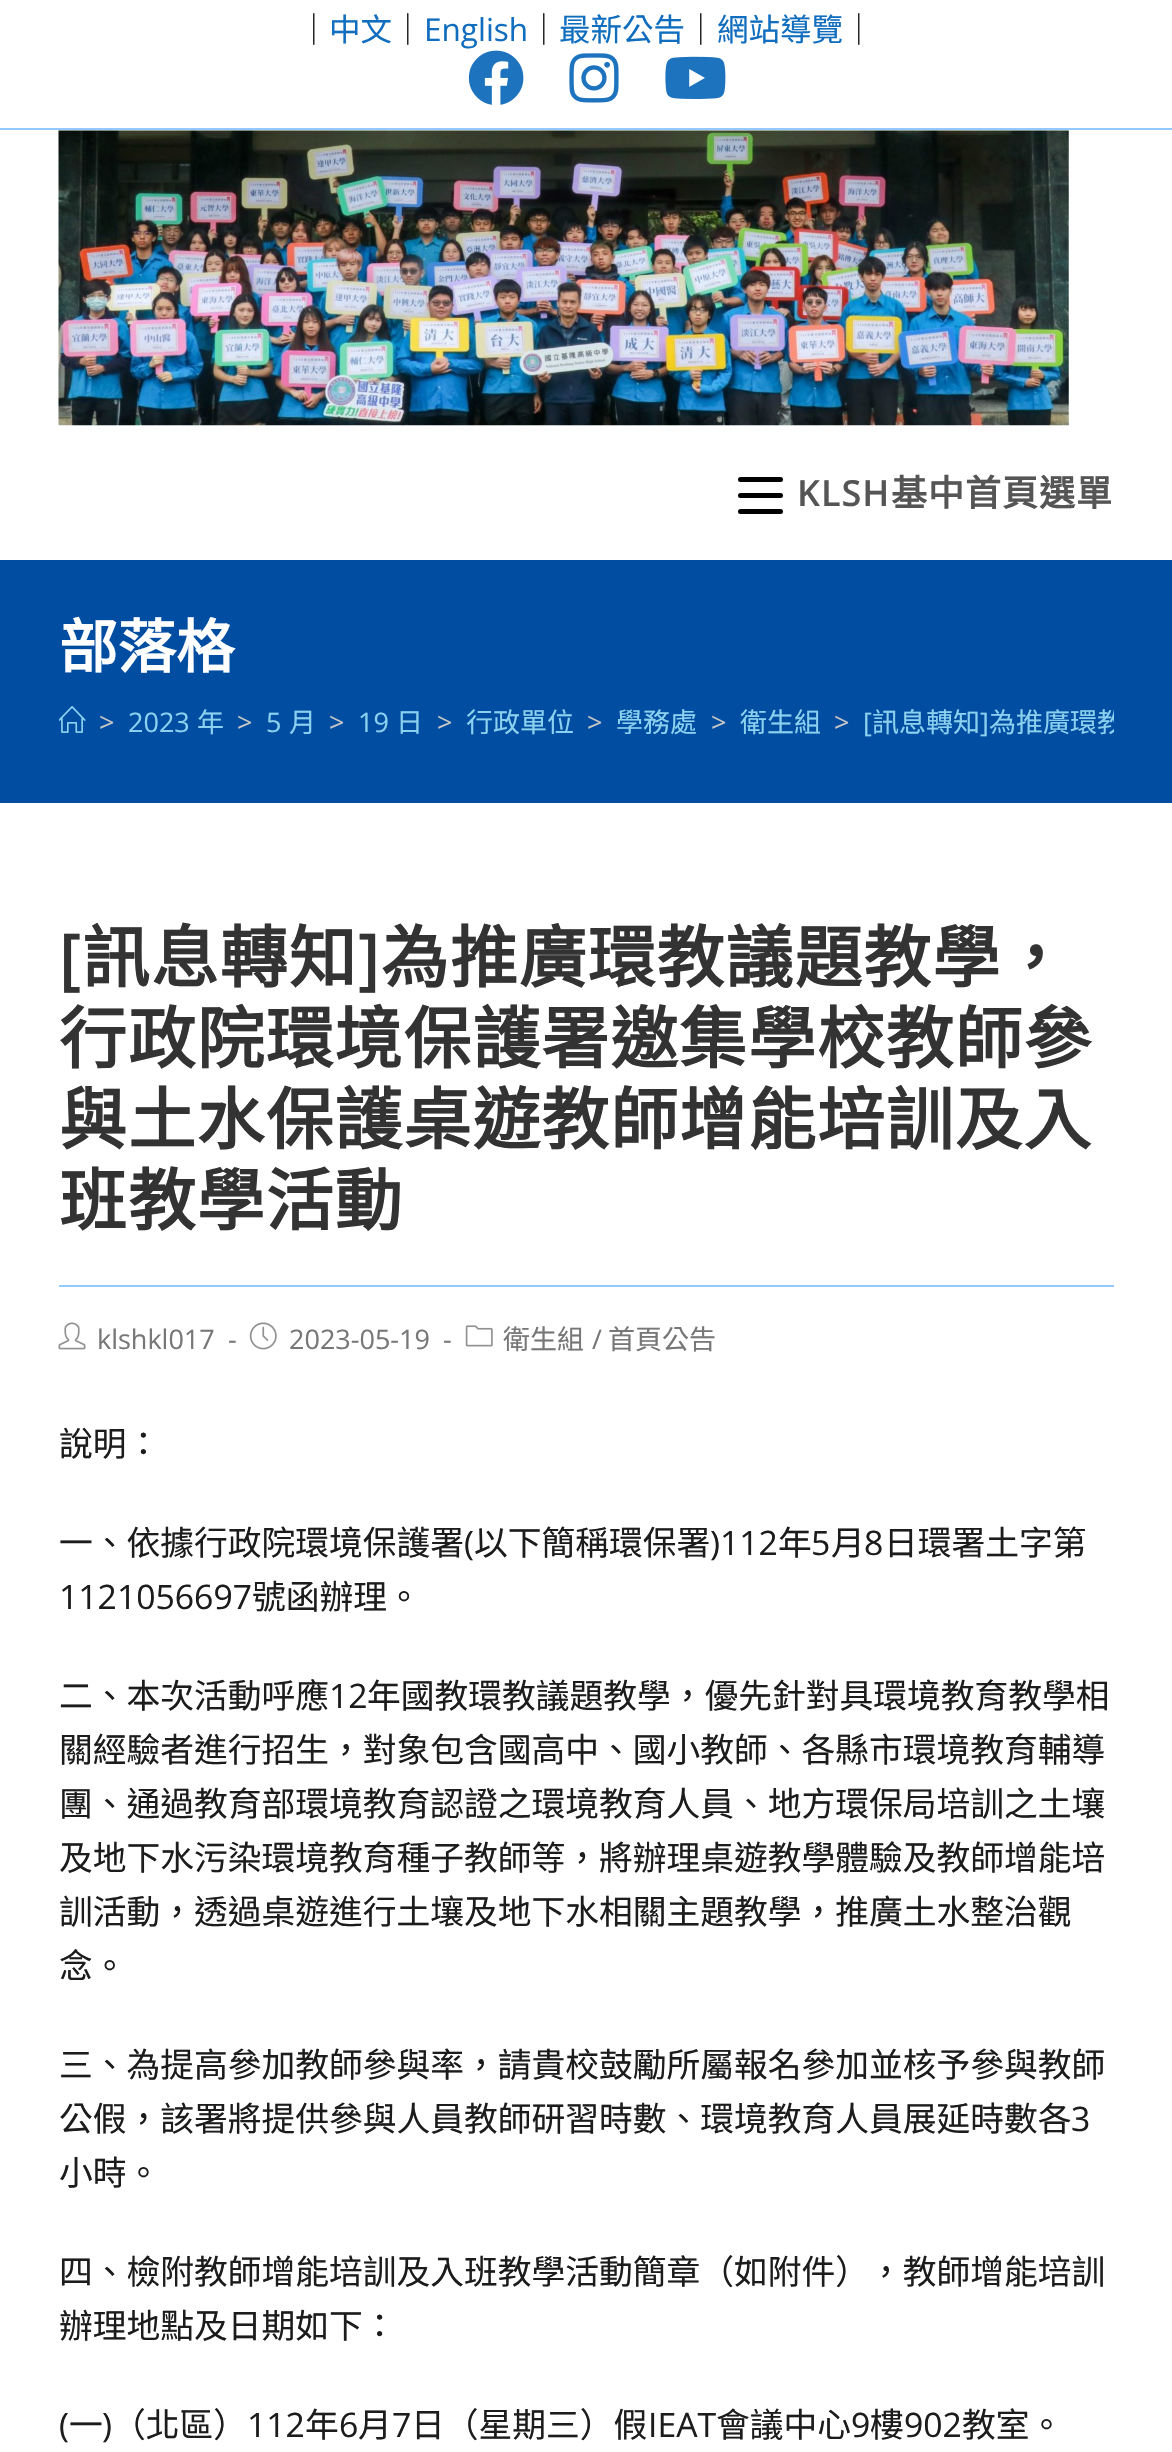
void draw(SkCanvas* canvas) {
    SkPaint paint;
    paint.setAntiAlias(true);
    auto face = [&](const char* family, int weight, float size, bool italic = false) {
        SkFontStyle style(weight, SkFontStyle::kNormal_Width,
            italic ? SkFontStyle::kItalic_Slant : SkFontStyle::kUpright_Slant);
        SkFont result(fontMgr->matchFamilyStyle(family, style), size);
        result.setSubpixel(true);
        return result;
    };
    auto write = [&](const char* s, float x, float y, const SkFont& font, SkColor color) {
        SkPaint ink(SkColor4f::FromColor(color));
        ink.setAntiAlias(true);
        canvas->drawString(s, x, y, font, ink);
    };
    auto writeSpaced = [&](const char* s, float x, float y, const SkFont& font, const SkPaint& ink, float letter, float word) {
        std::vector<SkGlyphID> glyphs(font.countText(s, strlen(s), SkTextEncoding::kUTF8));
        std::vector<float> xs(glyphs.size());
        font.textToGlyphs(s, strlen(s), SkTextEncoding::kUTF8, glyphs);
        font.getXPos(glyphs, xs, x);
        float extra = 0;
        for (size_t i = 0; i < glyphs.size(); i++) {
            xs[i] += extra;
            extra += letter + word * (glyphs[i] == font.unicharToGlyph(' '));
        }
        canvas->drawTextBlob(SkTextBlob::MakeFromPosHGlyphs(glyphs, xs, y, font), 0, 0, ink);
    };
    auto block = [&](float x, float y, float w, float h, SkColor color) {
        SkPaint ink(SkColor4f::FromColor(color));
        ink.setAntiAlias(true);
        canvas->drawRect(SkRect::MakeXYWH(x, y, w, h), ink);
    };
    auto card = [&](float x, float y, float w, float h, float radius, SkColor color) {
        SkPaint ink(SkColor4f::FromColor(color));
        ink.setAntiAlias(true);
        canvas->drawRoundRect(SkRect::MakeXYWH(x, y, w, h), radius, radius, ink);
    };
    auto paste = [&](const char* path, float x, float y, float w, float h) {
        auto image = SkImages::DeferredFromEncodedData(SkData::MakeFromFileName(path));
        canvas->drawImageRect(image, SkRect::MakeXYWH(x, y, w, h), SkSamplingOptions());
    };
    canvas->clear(SK_ColorWHITE);
    block(0, 128, 1172, 2, SkColorSetRGB(148, 201, 255));
    auto kFont1 = face("Noto Sans CJK TC", 400, 31.5f);
    write("｜", 298, 41, kFont1, SkColorSetRGB(28, 28, 28));
    write("中文", 329, 41, kFont1, SkColorSetRGB(17, 110, 191));
    write("｜", 392, 41, kFont1, SkColorSetRGB(28, 28, 28));
    auto kFont2 = face("Open Sans", 400, 31.5f);
    write("English", 424, 41, kFont2, SkColorSetRGB(17, 110, 191));
    write("｜", 528, 41, kFont1, SkColorSetRGB(28, 28, 28));
    write("最新公告", 559, 41, kFont1, SkColorSetRGB(17, 110, 191));
    write("｜", 685, 41, kFont1, SkColorSetRGB(28, 28, 28));
    write("網站導覽", 717, 41, kFont1, SkColorSetRGB(17, 110, 191));
    write("｜", 843, 41, kFont1, SkColorSetRGB(28, 28, 28));
    paste("pic1.png", 468, 50, 56, 55);
    paste("pic2.png", 569, 53, 50, 50);
    paste("pic3.png", 665, 56, 61, 43);
    paste("pic4.png", 58, 130, 1011, 296);
    card(738, 493, 45, 5, 2.5f, SK_ColorBLACK);
    card(738, 477, 45, 5, 2.5f, SK_ColorBLACK);
    card(738, 509, 45, 5, 2.5f, SK_ColorBLACK);
    auto kFont3 = face("Open Sans", 600, 36);
    paint.setColor(SkColorSetRGB(85, 85, 85));
    writeSpaced("KLSH", 797, 506, kFont3, paint, 1, 0);
    auto kFont4 = face("Noto Sans CJK TC", 700, 36);
    writeSpaced("基中首頁選單", 891, 506, kFont4, paint, 1, 0);
    block(0, 560, 1172, 243, SkColorSetRGB(0, 77, 161));
    auto kFont5 = face("Noto Sans CJK TC", 700, 58.5f);
    write("部落格", 59, 668, kFont5, SK_ColorWHITE);
    paste("pic5.png", 59, 706, 27, 27);
    auto kFont6 = face("Open Sans", 400, 27);
    write(">", 99, 732, kFont6, SkColorSetRGB(198, 198, 198));
    write("2023", 128, 732, kFont6, SkColorSetRGB(139, 209, 239));
    auto kFont7 = face("Noto Sans CJK TC", 400, 27);
    write("年", 197, 732, kFont7, SkColorSetRGB(139, 209, 239));
    write(">", 237, 732, kFont6, SkColorSetRGB(198, 198, 198));
    write("5", 266, 732, kFont6, SkColorSetRGB(139, 209, 239));
    write("月", 289, 732, kFont7, SkColorSetRGB(139, 209, 239));
    write(">", 329, 732, kFont6, SkColorSetRGB(198, 198, 198));
    write("19", 358, 732, kFont6, SkColorSetRGB(139, 209, 239));
    write("日", 396, 732, kFont7, SkColorSetRGB(139, 209, 239));
    write(">", 437, 732, kFont6, SkColorSetRGB(198, 198, 198));
    write("行政單位", 466, 732, kFont7, SkColorSetRGB(139, 209, 239));
    write(">", 587, 732, kFont6, SkColorSetRGB(198, 198, 198));
    write("學務處", 616, 732, kFont7, SkColorSetRGB(139, 209, 239));
    write(">", 711, 732, kFont6, SkColorSetRGB(198, 198, 198));
    write("衛生組", 740, 732, kFont7, SkColorSetRGB(139, 209, 239));
    write(">", 834, 732, kFont6, SkColorSetRGB(198, 198, 198));
    write("[", 863, 732, kFont6, SkColorSetRGB(139, 209, 239));
    write("訊息轉知", 872, 732, kFont7, SkColorSetRGB(139, 209, 239));
    write("]", 980, 732, kFont6, SkColorSetRGB(139, 209, 239));
    canvas->save();
    canvas->clipRect(SkRect::MakeXYWH(59, 686, 1055, 72));
    write("為推廣環教", 989, 732, kFont7, SkColorSetRGB(139, 209, 239));
    canvas->restore();
    block(59, 1285, 1055, 2, SkColorSetRGB(148, 201, 255));
    auto kFont8 = face("Open Sans", 600, 67.5f);
    paint.setColor(SkColorSetRGB(51, 51, 51));
    writeSpaced("[", 59, 982, kFont8, paint, 1.4f, 0);
    auto kFont9 = face("Noto Sans CJK TC", 700, 67.5f);
    writeSpaced("訊息轉知", 82, 982, kFont9, paint, 1.4f, 0);
    writeSpaced("]", 358, 982, kFont8, paint, 1.4f, 0);
    writeSpaced("為推廣環教議題教學，", 381, 982, kFont9, paint, 1.4f, 0);
    writeSpaced("行政院環境保護署邀集學校教師參", 59, 1063, kFont9, paint, 1.4f, 0);
    writeSpaced("與土水保護桌遊教師增能培訓及入", 59, 1144, kFont9, paint, 1.4f, 0);
    writeSpaced("班教學活動", 59, 1225, kFont9, paint, 1.4f, 0);
    paste("pic6.png", 58, 1322, 28, 28);
    write("klshkl017", 97, 1349, kFont6, SkColorSetRGB(119, 119, 119));
    write("-", 228, 1349, kFont6, SkColorSetRGB(119, 119, 119));
    paste("pic7.png", 249, 1322, 28, 28);
    write("2023-05-19", 289, 1349, kFont6, SkColorSetRGB(119, 119, 119));
    write("-", 443, 1349, kFont6, SkColorSetRGB(119, 119, 119));
    paste("pic8.png", 465, 1325, 28, 22);
    write("衛生組", 503, 1349, kFont7, SkColorSetRGB(119, 119, 119));
    write("/", 592, 1349, kFont6, SkColorSetRGB(119, 119, 119));
    write("首頁公告", 608, 1349, kFont7, SkColorSetRGB(119, 119, 119));
    auto kFont10 = face("Noto Sans CJK TC", 400, 33.75f);
    write("說明：", 59, 1456, kFont10, SkColorSetRGB(28, 28, 28));
    write("一、依據行政院環境保護署", 59, 1555, kFont10, SkColorSetRGB(28, 28, 28));
    auto kFont11 = face("Open Sans", 400, 33.75f);
    write("(", 464, 1555, kFont11, SkColorSetRGB(28, 28, 28));
    write("以下簡稱環保署", 474, 1555, kFont10, SkColorSetRGB(28, 28, 28));
    write(")112", 710, 1555, kFont11, SkColorSetRGB(28, 28, 28));
    write("年", 778, 1555, kFont10, SkColorSetRGB(28, 28, 28));
    write("5", 811, 1555, kFont11, SkColorSetRGB(28, 28, 28));
    write("月", 831, 1555, kFont10, SkColorSetRGB(28, 28, 28));
    write("8", 864, 1555, kFont11, SkColorSetRGB(28, 28, 28));
    write("日環署土字第", 884, 1555, kFont10, SkColorSetRGB(28, 28, 28));
    write("1121056697", 59, 1609, kFont11, SkColorSetRGB(28, 28, 28));
    write("號函辦理。", 252, 1609, kFont10, SkColorSetRGB(28, 28, 28));
    write("二、本次活動呼應", 59, 1708, kFont10, SkColorSetRGB(28, 28, 28));
    write("12", 329, 1708, kFont11, SkColorSetRGB(28, 28, 28));
    write("年國教環教議題教學，優先針對具環境教育教學相", 367, 1708, kFont10, SkColorSetRGB(28, 28, 28));
    write("關經驗者進行招生，對象包含國高中、國小教師、各縣市環境教育輔導", 59, 1762, kFont10, SkColorSetRGB(28, 28, 28));
    write("團、通過教育部環境教育認證之環境教育人員、地方環保局培訓之土壤", 59, 1816, kFont10, SkColorSetRGB(28, 28, 28));
    write("及地下水污染環境教育種子教師等，將辦理桌遊教學體驗及教師增能培", 59, 1870, kFont10, SkColorSetRGB(28, 28, 28));
    write("訓活動，透過桌遊進行土壤及地下水相關主題教學，推廣土水整治觀", 59, 1924, kFont10, SkColorSetRGB(28, 28, 28));
    write("念。", 59, 1978, kFont10, SkColorSetRGB(28, 28, 28));
    write("三、為提高參加教師參與率，請貴校鼓勵所屬報名參加並核予參與教師", 59, 2077, kFont10, SkColorSetRGB(28, 28, 28));
    write("公假，該署將提供參與人員教師研習時數、環境教育人員展延時數各", 59, 2131, kFont10, SkColorSetRGB(28, 28, 28));
    write("3", 1071, 2131, kFont11, SkColorSetRGB(28, 28, 28));
    write("小時。", 59, 2185, kFont10, SkColorSetRGB(28, 28, 28));
    write("四、檢附教師增能培訓及入班教學活動簡章（如附件），教師增能培訓", 59, 2284, kFont10, SkColorSetRGB(28, 28, 28));
    write("辦理地點及日期如下：", 59, 2338, kFont10, SkColorSetRGB(28, 28, 28));
    write("(", 59, 2437, kFont11, SkColorSetRGB(28, 28, 28));
    write("一", 69, 2437, kFont10, SkColorSetRGB(28, 28, 28));
    write(")", 102, 2437, kFont11, SkColorSetRGB(28, 28, 28));
    write("（北區）", 112, 2437, kFont10, SkColorSetRGB(28, 28, 28));
    write("112", 247, 2437, kFont11, SkColorSetRGB(28, 28, 28));
    write("年", 305, 2437, kFont10, SkColorSetRGB(28, 28, 28));
    write("6", 339, 2437, kFont11, SkColorSetRGB(28, 28, 28));
    write("月", 358, 2437, kFont10, SkColorSetRGB(28, 28, 28));
    write("7", 392, 2437, kFont11, SkColorSetRGB(28, 28, 28));
    write("日（星期三）假", 411, 2437, kFont10, SkColorSetRGB(28, 28, 28));
    write("IEAT", 648, 2437, kFont11, SkColorSetRGB(28, 28, 28));
    write("會議中心", 716, 2437, kFont10, SkColorSetRGB(28, 28, 28));
    write("9", 851, 2437, kFont11, SkColorSetRGB(28, 28, 28));
    write("樓", 870, 2437, kFont10, SkColorSetRGB(28, 28, 28));
    write("902", 904, 2437, kFont11, SkColorSetRGB(28, 28, 28));
    write("教室。", 962, 2437, kFont10, SkColorSetRGB(28, 28, 28));
}
